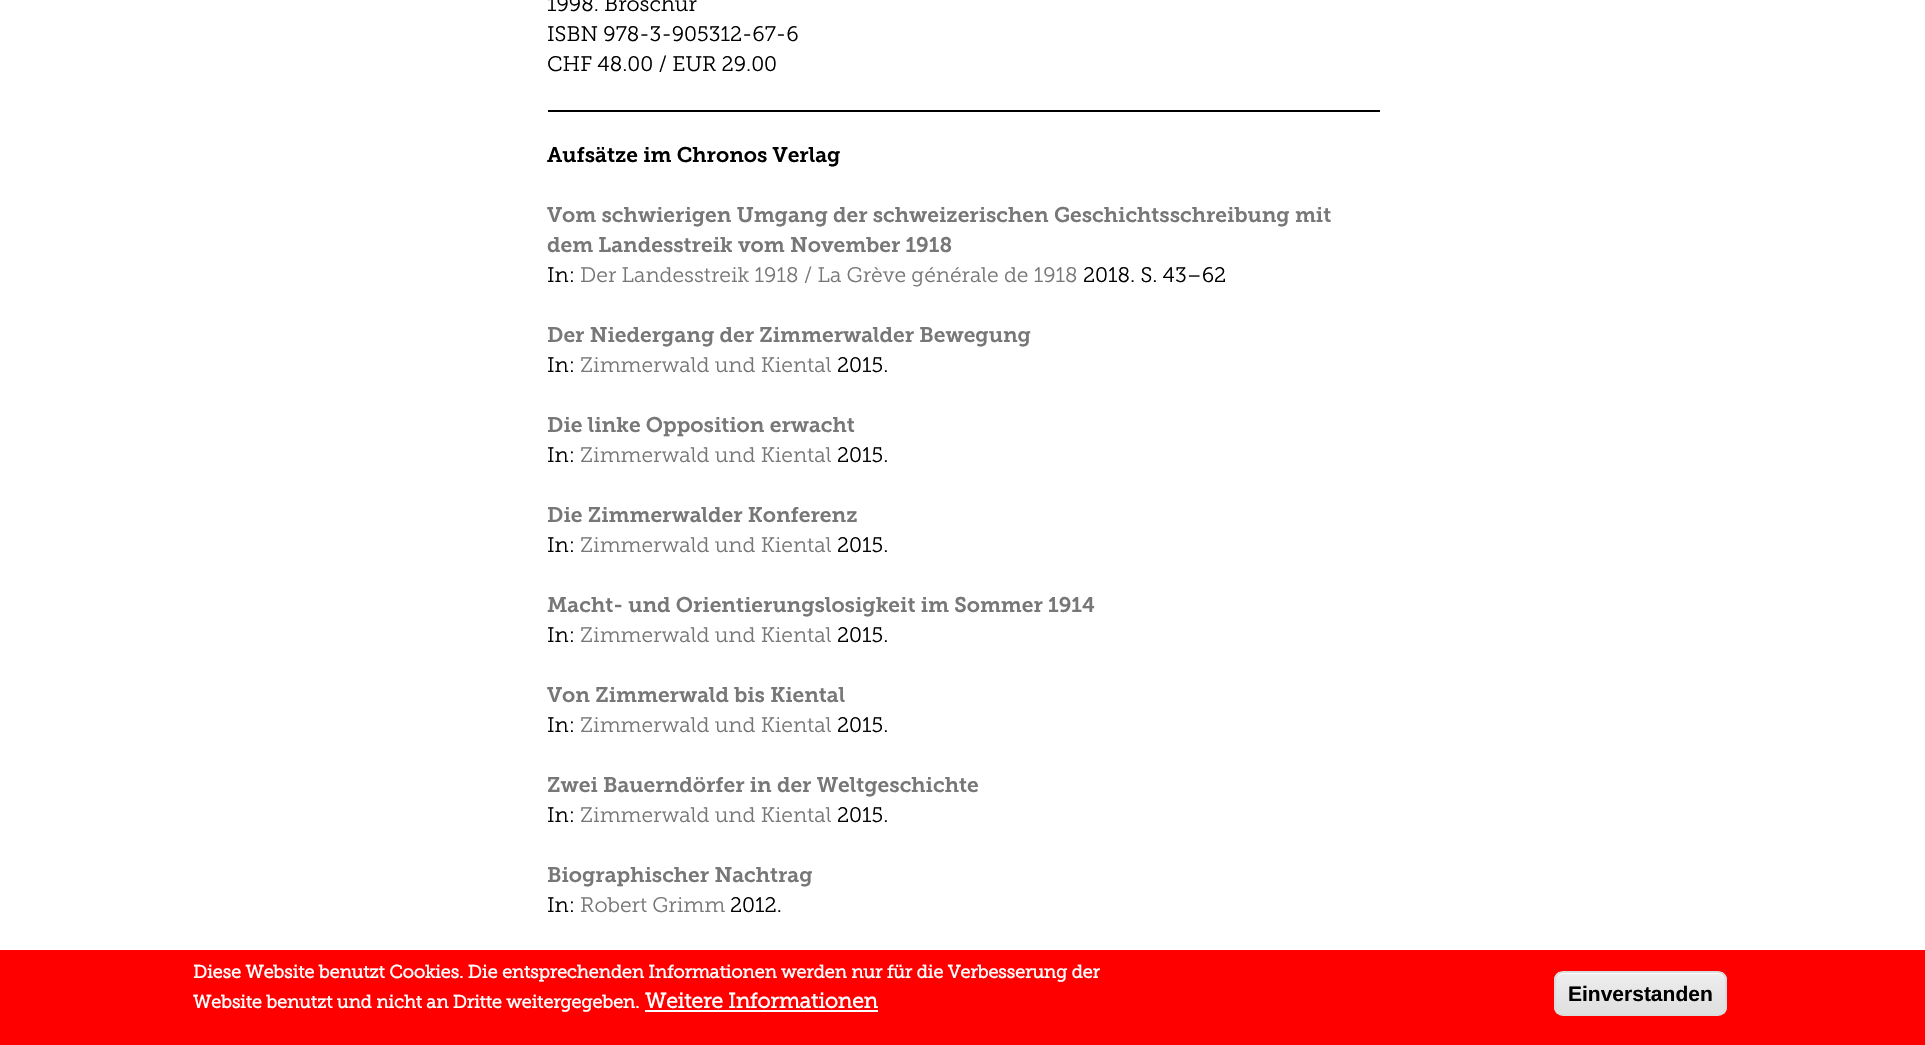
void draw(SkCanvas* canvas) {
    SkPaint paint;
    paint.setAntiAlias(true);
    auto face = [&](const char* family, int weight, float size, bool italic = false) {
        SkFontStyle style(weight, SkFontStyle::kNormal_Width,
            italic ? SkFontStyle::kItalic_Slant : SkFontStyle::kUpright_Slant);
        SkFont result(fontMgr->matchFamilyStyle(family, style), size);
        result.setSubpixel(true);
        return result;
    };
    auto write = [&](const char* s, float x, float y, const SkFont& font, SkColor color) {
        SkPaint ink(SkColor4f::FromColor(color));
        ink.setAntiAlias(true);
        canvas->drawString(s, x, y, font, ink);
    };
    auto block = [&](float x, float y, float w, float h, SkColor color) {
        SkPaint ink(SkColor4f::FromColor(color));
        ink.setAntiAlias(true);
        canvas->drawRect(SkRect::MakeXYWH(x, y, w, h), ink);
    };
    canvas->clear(SK_ColorWHITE);
    auto kFont1 = face("Museo Slab", 300, 21);
    write("1998. Broschur", 547, 11, kFont1, SK_ColorBLACK);
    write("ISBN 978-3-905312-67-6", 547, 41, kFont1, SK_ColorBLACK);
    write("CHF 48.00 / EUR 29.00", 547, 71, kFont1, SK_ColorBLACK);
    block(548, 110, 832, 2, SK_ColorBLACK);
    auto kFont2 = face("Museo Slab", 600, 21);
    write("Aufsätze im Chronos Verlag", 547, 162, kFont2, SK_ColorBLACK);
    write("Vom schwierigen Umgang der schweizerischen Geschichtsschreibung mit", 547, 222, kFont2, SkColorSetRGB(119, 119, 119));
    write("dem Landesstreik vom November 1918", 547, 252, kFont2, SkColorSetRGB(119, 119, 119));
    write("In:", 547, 282, kFont1, SK_ColorBLACK);
    write("Der Landesstreik 1918 / La Grève générale de 1918", 580, 282, kFont1, SkColorSetRGB(119, 119, 119));
    write("2018. S. 43–62", 1083, 282, kFont1, SK_ColorBLACK);
    write("Der Niedergang der Zimmerwalder Bewegung", 547, 342, kFont2, SkColorSetRGB(119, 119, 119));
    write("In:", 547, 372, kFont1, SK_ColorBLACK);
    write("Zimmerwald und Kiental", 580, 372, kFont1, SkColorSetRGB(119, 119, 119));
    write("2015.", 837, 372, kFont1, SK_ColorBLACK);
    write("Die linke Opposition erwacht", 547, 432, kFont2, SkColorSetRGB(119, 119, 119));
    write("In:", 547, 462, kFont1, SK_ColorBLACK);
    write("Zimmerwald und Kiental", 580, 462, kFont1, SkColorSetRGB(119, 119, 119));
    write("2015.", 837, 462, kFont1, SK_ColorBLACK);
    write("Die Zimmerwalder Konferenz", 547, 522, kFont2, SkColorSetRGB(119, 119, 119));
    write("In:", 547, 552, kFont1, SK_ColorBLACK);
    write("Zimmerwald und Kiental", 580, 552, kFont1, SkColorSetRGB(119, 119, 119));
    write("2015.", 837, 552, kFont1, SK_ColorBLACK);
    write("Macht- und Orientierungslosigkeit im Sommer 1914", 547, 612, kFont2, SkColorSetRGB(119, 119, 119));
    write("In:", 547, 642, kFont1, SK_ColorBLACK);
    write("Zimmerwald und Kiental", 580, 642, kFont1, SkColorSetRGB(119, 119, 119));
    write("2015.", 837, 642, kFont1, SK_ColorBLACK);
    write("Von Zimmerwald bis Kiental", 547, 702, kFont2, SkColorSetRGB(119, 119, 119));
    write("In:", 547, 732, kFont1, SK_ColorBLACK);
    write("Zimmerwald und Kiental", 580, 732, kFont1, SkColorSetRGB(119, 119, 119));
    write("2015.", 837, 732, kFont1, SK_ColorBLACK);
    write("Zwei Bauerndörfer in der Weltgeschichte", 547, 792, kFont2, SkColorSetRGB(119, 119, 119));
    write("In:", 547, 822, kFont1, SK_ColorBLACK);
    write("Zimmerwald und Kiental", 580, 822, kFont1, SkColorSetRGB(119, 119, 119));
    write("2015.", 837, 822, kFont1, SK_ColorBLACK);
    write("Biographischer Nachtrag", 547, 882, kFont2, SkColorSetRGB(119, 119, 119));
    write("In:", 547, 912, kFont1, SK_ColorBLACK);
    write("Robert Grimm", 580, 912, kFont1, SkColorSetRGB(119, 119, 119));
    write("2012.", 730, 912, kFont1, SK_ColorBLACK);
    block(0, 950, 1925, 95, SkColorSetRGB(255, 0, 0));
    auto kFont3 = face("Museo Slab", 700, 18);
    write("Diese Website benutzt Cookies. Die entsprechenden Informationen werden nur für die Verbesserung der", 193, 978, kFont3, SK_ColorWHITE);
    write("Website benutzt und nicht an Dritte weitergegeben.", 193, 1008, kFont3, SK_ColorWHITE);
    auto kFont4 = face("Museo Slab", 700, 21);
    write("Weitere Informationen", 645, 1008, kFont4, SK_ColorWHITE);
    block(645, 1010, 233, 2, SK_ColorWHITE);
    canvas->save();
    canvas->clipPath(SkPathBuilder().moveTo(1563, 971).lineTo(1718, 971).cubicTo(1723, 971, 1727, 975, 1727, 980).lineTo(1727, 1007).cubicTo(1727, 1012, 1723, 1016, 1718, 1016).lineTo(1563, 1016).cubicTo(1558, 1016, 1554, 1012, 1554, 1007).lineTo(1554, 980).cubicTo(1554, 975, 1558, 971, 1563, 971).close().detach(), true);
    {
        const SkColor colors[] = {SkColorSetRGB(237, 237, 237), SkColorSetRGB(223, 223, 223)};
        const float stops[] = {0.05f, 1};
        const SkPoint ends[] = {{1640, 972}, {1640, 1014}};
        paint.setShader(SkGradientShader::MakeLinear(ends, colors, stops, 2, SkTileMode::kClamp));
        paint.setAlpha(255);
    }
    canvas->drawRect(SkRect::MakeXYWH(1554, 972, 173, 42), paint);
    canvas->restore();
    paint.setShader(nullptr);
    paint.setColor(SK_ColorWHITE);
    canvas->drawPath(SkPathBuilder().moveTo(1563, 974).lineTo(1718, 974).cubicTo(1722, 974, 1725, 977, 1725, 981).lineTo(1725, 980).cubicTo(1725, 976, 1721, 972, 1717, 972).lineTo(1564, 972).cubicTo(1560, 972, 1556, 976, 1556, 980).lineTo(1556, 981).cubicTo(1556, 977, 1559, 974, 1563, 974).close().detach(), paint);
    paint.setStyle(SkPaint::kStroke_Style);
    paint.setStrokeWidth(2);
    paint.setColor(SkColorSetRGB(220, 220, 220));
    canvas->drawRoundRect(SkRect::MakeXYWH(1555, 972, 171, 43), 8, 8, paint);
    auto kFont5 = face("Liberation Sans", 700, 21);
    write("Einverstanden", 1568, 1001, kFont5, SK_ColorBLACK);
}
